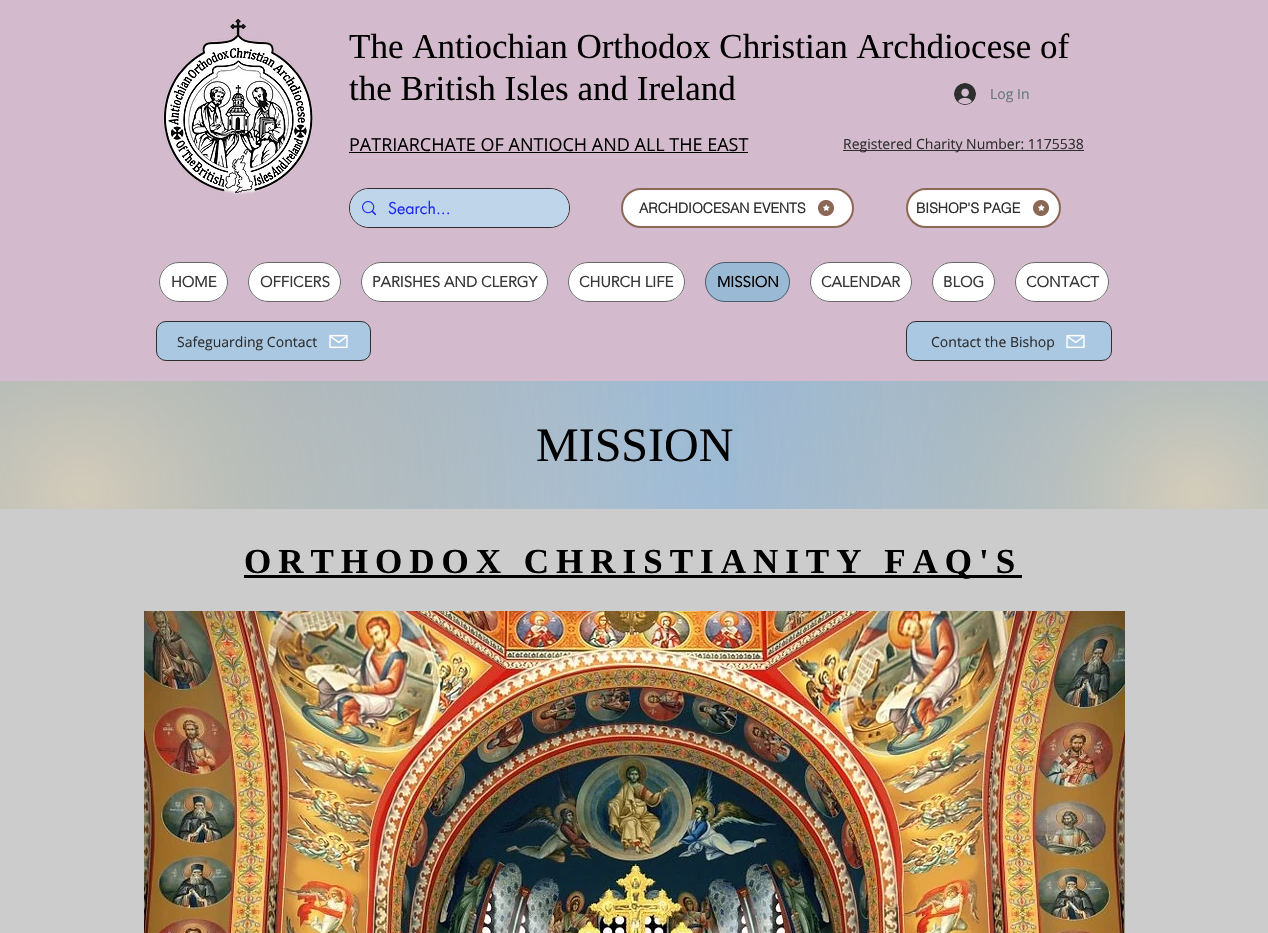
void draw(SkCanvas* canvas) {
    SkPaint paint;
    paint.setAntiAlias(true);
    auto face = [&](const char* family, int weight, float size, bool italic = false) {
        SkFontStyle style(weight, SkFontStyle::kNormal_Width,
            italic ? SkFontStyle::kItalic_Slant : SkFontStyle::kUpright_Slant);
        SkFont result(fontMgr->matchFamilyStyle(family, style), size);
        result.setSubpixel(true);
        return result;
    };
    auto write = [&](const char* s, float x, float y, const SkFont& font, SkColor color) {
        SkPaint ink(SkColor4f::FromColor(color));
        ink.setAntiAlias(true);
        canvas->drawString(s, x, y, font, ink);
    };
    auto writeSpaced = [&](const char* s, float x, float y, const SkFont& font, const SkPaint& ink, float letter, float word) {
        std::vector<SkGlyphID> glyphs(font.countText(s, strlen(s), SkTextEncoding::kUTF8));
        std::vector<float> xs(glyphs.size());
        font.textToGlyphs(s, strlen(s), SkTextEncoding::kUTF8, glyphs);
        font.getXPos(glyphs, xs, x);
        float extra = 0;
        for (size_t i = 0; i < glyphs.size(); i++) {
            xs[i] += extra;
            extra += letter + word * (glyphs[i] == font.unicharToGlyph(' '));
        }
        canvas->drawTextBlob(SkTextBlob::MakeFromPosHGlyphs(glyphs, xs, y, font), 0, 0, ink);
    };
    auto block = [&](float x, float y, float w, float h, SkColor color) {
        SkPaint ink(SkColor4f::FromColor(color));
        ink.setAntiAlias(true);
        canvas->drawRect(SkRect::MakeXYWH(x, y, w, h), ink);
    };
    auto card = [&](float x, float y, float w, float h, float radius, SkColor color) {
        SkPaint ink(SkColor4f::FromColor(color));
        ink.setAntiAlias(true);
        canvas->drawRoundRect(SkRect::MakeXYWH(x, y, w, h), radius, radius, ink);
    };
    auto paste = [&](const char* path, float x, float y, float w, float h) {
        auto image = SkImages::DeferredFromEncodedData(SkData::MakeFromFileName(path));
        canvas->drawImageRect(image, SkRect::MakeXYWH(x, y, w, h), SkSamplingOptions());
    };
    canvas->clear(SkColorSetRGB(211, 186, 204));
    paste("pic1.png", 163, 19, 150, 176);
    auto kFont1 = face("Liberation Serif", 400, 35);
    write("The Antiochian Orthodox Christian Archdiocese of", 349, 58, kFont1, SK_ColorBLACK);
    write("the British Isles and Ireland", 349, 100, kFont1, SK_ColorBLACK);
    paste("pic2.png", 954, 83, 22, 22);
    auto kFont2 = face("Open Sans", 400, 14);
    write("Log In", 990, 99, kFont2, SkColorSetRGB(99, 120, 126));
    auto kFont3 = face("Open Sans", 400, 18);
    write("PATRIARCHATE OF ANTIOCH AND ALL THE EAST", 349, 151, kFont3, SK_ColorBLACK);
    block(349, 152, 399, 1, SK_ColorBLACK);
    block(843, 150, 241, 1, SkColorSetRGB(47, 46, 46));
    write("Registered Charity Number: 1175538", 843, 149, kFont2, SkColorSetRGB(47, 46, 46));
    paint.setStyle(SkPaint::kStroke_Style);
    paint.setStrokeWidth(1);
    paint.setColor(SkColorSetRGB(47, 46, 46));
    canvas->drawRoundRect(SkRect::MakeXYWH(349.5f, 188.5f, 220, 39), 19.5f, 19.5f, paint);
    card(350, 189, 219, 38, 19, SkColorSetRGB(191, 214, 234));
    paste("pic3.png", 362, 201, 14, 14);
    auto kFont4 = face("futura", 400, 16);
    write("Search...", 388, 214, kFont4, SkColorSetRGB(31, 43, 243));
    paint.setStyle(SkPaint::kFill_Style);
    paint.setColor(SK_ColorWHITE);
    canvas->drawRoundRect(SkRect::MakeXYWH(622, 189, 231, 38), 19, 19, paint);
    paint.setStyle(SkPaint::kStroke_Style);
    paint.setStrokeWidth(2);
    paint.setColor(SkColorSetRGB(139, 103, 85));
    canvas->drawRoundRect(SkRect::MakeXYWH(622, 189, 231, 38), 19, 19, paint);
    auto kFont5 = face("helvetica", 700, 14);
    write("ARCHDIOCESAN EVENTS", 639, 213, kFont5, SkColorSetRGB(47, 46, 46));
    paste("pic4.png", 818, 200, 16, 16);
    paint.setStyle(SkPaint::kFill_Style);
    paint.setColor(SK_ColorWHITE);
    canvas->drawRoundRect(SkRect::MakeXYWH(907, 189, 153, 38), 19, 19, paint);
    paint.setStyle(SkPaint::kStroke_Style);
    paint.setColor(SkColorSetRGB(139, 103, 85));
    canvas->drawRoundRect(SkRect::MakeXYWH(907, 189, 153, 38), 19, 19, paint);
    write("BISHOP'S PAGE", 916, 213, kFont5, SkColorSetRGB(47, 46, 46));
    paste("pic4.png", 1033, 200, 16, 16);
    card(159, 262, 69, 40, 20, SK_ColorWHITE);
    paint.setStrokeWidth(1);
    paint.setColor(SkColorSetARGB(184, 47, 46, 46));
    canvas->drawRoundRect(SkRect::MakeXYWH(159.5f, 262.5f, 68, 39), 19.5f, 19.5f, paint);
    auto kFont6 = face("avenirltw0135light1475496", 700, 15);
    write("HOME", 171, 287, kFont6, SkColorSetRGB(56, 56, 56));
    card(248, 262, 93, 40, 20, SK_ColorWHITE);
    canvas->drawRoundRect(SkRect::MakeXYWH(248.5f, 262.5f, 92, 39), 19.5f, 19.5f, paint);
    write("OFFICERS", 260, 287, kFont6, SkColorSetRGB(56, 56, 56));
    card(361, 262, 187, 40, 20, SK_ColorWHITE);
    canvas->drawRoundRect(SkRect::MakeXYWH(361.5f, 262.5f, 186, 39), 19.5f, 19.5f, paint);
    write("PARISHES AND CLERGY", 372, 287, kFont6, SkColorSetRGB(56, 56, 56));
    card(568, 262, 117, 40, 20, SK_ColorWHITE);
    canvas->drawRoundRect(SkRect::MakeXYWH(568.5f, 262.5f, 116, 39), 19.5f, 19.5f, paint);
    write("CHURCH LIFE", 579, 287, kFont6, SkColorSetRGB(56, 56, 56));
    card(705, 262, 85, 40, 20, SkColorSetRGB(154, 185, 212));
    paint.setColor(SkColorSetARGB(128, 0, 0, 0));
    canvas->drawRoundRect(SkRect::MakeXYWH(705.5f, 262.5f, 84, 39), 19.5f, 19.5f, paint);
    write("MISSION", 717, 287, kFont6, SK_ColorBLACK);
    card(810, 262, 102, 40, 20, SK_ColorWHITE);
    paint.setColor(SkColorSetARGB(184, 47, 46, 46));
    canvas->drawRoundRect(SkRect::MakeXYWH(810.5f, 262.5f, 101, 39), 19.5f, 19.5f, paint);
    write("CALENDAR", 821, 287, kFont6, SkColorSetRGB(56, 56, 56));
    card(932, 262, 63, 40, 20, SK_ColorWHITE);
    canvas->drawRoundRect(SkRect::MakeXYWH(932.5f, 262.5f, 62, 39), 19.5f, 19.5f, paint);
    write("BLOG", 943, 287, kFont6, SkColorSetRGB(56, 56, 56));
    card(1015, 262, 94, 40, 20, SK_ColorWHITE);
    canvas->drawRoundRect(SkRect::MakeXYWH(1015.5f, 262.5f, 93, 39), 19.5f, 19.5f, paint);
    write("CONTACT", 1026, 287, kFont6, SkColorSetRGB(56, 56, 56));
    paint.setStyle(SkPaint::kFill_Style);
    paint.setColor(SkColorSetRGB(171, 200, 226));
    canvas->drawRoundRect(SkRect::MakeXYWH(156.5f, 321.5f, 214, 39), 9.5f, 9.5f, paint);
    paint.setStyle(SkPaint::kStroke_Style);
    paint.setColor(SkColorSetRGB(47, 46, 46));
    canvas->drawRoundRect(SkRect::MakeXYWH(156.5f, 321.5f, 214, 39), 9.5f, 9.5f, paint);
    write("Safeguarding Contact", 177, 347, kFont2, SkColorSetRGB(47, 46, 46));
    paste("pic5.png", 329, 334, 19, 15);
    paint.setStyle(SkPaint::kFill_Style);
    paint.setColor(SkColorSetRGB(171, 200, 226));
    canvas->drawRoundRect(SkRect::MakeXYWH(906.5f, 321.5f, 205, 39), 9.5f, 9.5f, paint);
    paint.setStyle(SkPaint::kStroke_Style);
    paint.setColor(SkColorSetRGB(47, 46, 46));
    canvas->drawRoundRect(SkRect::MakeXYWH(906.5f, 321.5f, 205, 39), 9.5f, 9.5f, paint);
    write("Contact the Bishop", 931, 347, kFont2, SkColorSetRGB(47, 46, 46));
    paste("pic5.png", 1066, 334, 19, 15);
    paint.setStyle(SkPaint::kFill_Style);
    {
        const SkColor colors[] = {SK_ColorWHITE, SkColorSetRGB(236, 224, 228)};
        const float stops[] = {0, 1};
        paint.setShader(SkGradientShader::MakeRadial({620, 444}, 651, colors, stops, 2, SkTileMode::kClamp));
        paint.setAlpha(255);
    }
    canvas->drawRect(SkRect::MakeXYWH(0, 381, 1268, 128), paint);
    {
        const SkColor colors[] = {SkColorSetRGB(86, 142, 191), SkColorSetARGB(0, 86, 142, 191)};
        const float stops[] = {0, 0.7f};
        paint.setShader(SkGradientShader::MakeRadial({1188, 396}, 1193, colors, stops, 2, SkTileMode::kClamp));
        paint.setAlpha(255);
    }
    canvas->drawRect(SkRect::MakeXYWH(371, 381, 897, 128), paint);
    {
        const SkColor colors[] = {SkColorSetRGB(86, 130, 169), SkColorSetARGB(0, 86, 130, 169)};
        const float stops[] = {0, 0.7f};
        paint.setShader(SkGradientShader::MakeRadial({78, 397}, 1195, colors, stops, 2, SkTileMode::kClamp));
        paint.setAlpha(255);
    }
    canvas->drawRect(SkRect::MakeXYWH(0, 381, 882, 128), paint);
    {
        const SkColor colors[] = {SkColorSetARGB(252, 211, 204, 186), SkColorSetARGB(0, 211, 204, 186)};
        const float stops[] = {0, 0.5f};
        paint.setShader(SkGradientShader::MakeRadial({82, 494}, 1191, colors, stops, 2, SkTileMode::kClamp));
        paint.setAlpha(255);
    }
    canvas->drawRect(SkRect::MakeXYWH(0, 381, 653, 128), paint);
    {
        const SkColor colors[] = {SkColorSetRGB(211, 204, 186), SkColorSetARGB(0, 211, 204, 186)};
        const float stops[] = {0, 0.4f};
        paint.setShader(SkGradientShader::MakeRadial({1196, 496}, 1202, colors, stops, 2, SkTileMode::kClamp));
        paint.setAlpha(255);
    }
    canvas->drawRect(SkRect::MakeXYWH(737, 381, 531, 128), paint);
    auto kFont7 = face("Liberation Serif", 400, 48);
    write("MISSION", 536, 461, kFont7, SK_ColorBLACK);
    block(0, 509, 1268, 424, SkColorSetRGB(204, 204, 204));
    block(244, 575, 778, 3, SK_ColorBLACK);
    auto kFont8 = face("Liberation Serif", 700, 35);
    paint.setShader(nullptr);
    paint.setColor(SK_ColorBLACK);
    writeSpaced("ORTHODOX CHRISTIANITY FAQ'S", 244, 573, kFont8, paint, 7, 0);
    paste("pic6.png", 144, 611, 981, 322);
}
